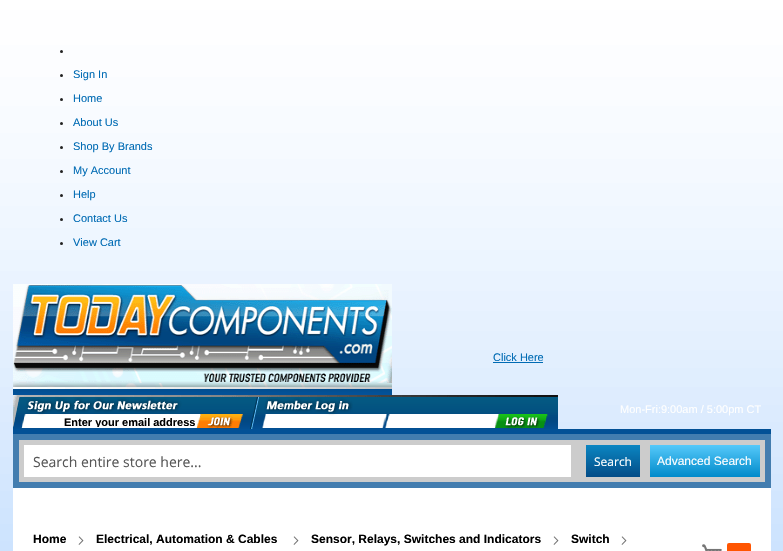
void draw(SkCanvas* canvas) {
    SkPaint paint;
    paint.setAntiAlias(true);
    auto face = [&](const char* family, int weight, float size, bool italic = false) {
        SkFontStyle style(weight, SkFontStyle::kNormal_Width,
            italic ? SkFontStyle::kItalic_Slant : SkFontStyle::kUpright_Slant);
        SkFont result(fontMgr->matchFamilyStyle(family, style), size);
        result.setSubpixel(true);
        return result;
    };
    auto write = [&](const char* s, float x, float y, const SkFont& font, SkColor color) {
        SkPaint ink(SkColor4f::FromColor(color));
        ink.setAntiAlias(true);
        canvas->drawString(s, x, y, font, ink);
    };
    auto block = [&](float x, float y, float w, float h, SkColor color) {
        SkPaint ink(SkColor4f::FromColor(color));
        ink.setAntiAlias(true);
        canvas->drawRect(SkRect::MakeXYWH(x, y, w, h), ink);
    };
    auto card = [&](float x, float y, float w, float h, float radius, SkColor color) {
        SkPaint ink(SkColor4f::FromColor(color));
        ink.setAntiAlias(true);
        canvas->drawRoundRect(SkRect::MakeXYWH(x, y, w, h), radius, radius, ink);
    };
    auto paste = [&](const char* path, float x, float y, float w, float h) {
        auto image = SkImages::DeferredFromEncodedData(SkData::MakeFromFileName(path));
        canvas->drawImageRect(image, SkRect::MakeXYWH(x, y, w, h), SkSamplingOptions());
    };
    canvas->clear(SK_ColorWHITE);
    paste("pic1.png", 0, 0, 783, 551);
    paint.setColor(SkColorSetRGB(34, 34, 34));
    canvas->drawCircle(61.5f, 51.5f, 1.5f, paint);
    canvas->drawCircle(61.5f, 75.5f, 1.5f, paint);
    auto kFont1 = face("Liberation Sans", 400, 11);
    write("Sign In", 73, 78, kFont1, SkColorSetRGB(0, 107, 180));
    canvas->drawCircle(61.5f, 99.5f, 1.5f, paint);
    write("Home", 73, 102, kFont1, SkColorSetRGB(0, 107, 180));
    canvas->drawCircle(61.5f, 123.5f, 1.5f, paint);
    write("About Us", 73, 126, kFont1, SkColorSetRGB(0, 107, 180));
    canvas->drawCircle(61.5f, 147.5f, 1.5f, paint);
    write("Shop By Brands", 73, 150, kFont1, SkColorSetRGB(0, 107, 180));
    canvas->drawCircle(61.5f, 171.5f, 1.5f, paint);
    write("My Account", 73, 174, kFont1, SkColorSetRGB(0, 107, 180));
    canvas->drawCircle(61.5f, 195.5f, 1.5f, paint);
    write("Help", 73, 198, kFont1, SkColorSetRGB(0, 107, 180));
    canvas->drawCircle(61.5f, 219.5f, 1.5f, paint);
    write("Contact Us", 73, 222, kFont1, SkColorSetRGB(0, 107, 180));
    canvas->drawCircle(61.5f, 243.5f, 1.5f, paint);
    write("View Cart", 73, 246, kFont1, SkColorSetRGB(0, 107, 180));
    paste("pic2.png", 13, 284, 379, 99);
    paste("pic3.png", 13, 383, 379, 12);
    write("Click Here", 493, 361, kFont1, SkColorSetRGB(0, 107, 180));
    block(493, 362, 50, 1, SkColorSetRGB(0, 107, 180));
    paste("pic4.png", 259, 395, 299, 34);
    write("Mon-Fri:9:00am / 5:00pm CT", 620, 413, kFont1, SK_ColorWHITE);
    paste("pic5.png", 13, 395, 246, 34);
    canvas->save();
    canvas->clipPath(SkPathBuilder().moveTo(34, 414).lineTo(195, 414).cubicTo(195.5f, 414, 196, 414.5f, 196, 415).lineTo(196, 426).cubicTo(196, 426.5f, 195.5f, 427, 195, 427).lineTo(34, 427).cubicTo(33.5f, 427, 33, 426.5f, 33, 426).lineTo(33, 415).cubicTo(33, 414.5f, 33.5f, 414, 34, 414).close().detach(), true);
    auto kFont2 = face("Liberation Sans", 700, 11);
    write("Enter your email address", 64, 426, kFont2, SK_ColorBLACK);
    canvas->restore();
    block(13, 429, 758, 5, SkColorSetRGB(3, 81, 150));
    paint.setStyle(SkPaint::kStroke_Style);
    paint.setStrokeWidth(6);
    paint.setColor(SkColorSetRGB(67, 125, 175));
    canvas->drawRect(SkRect::MakeXYWH(16, 437, 752, 48), paint);
    block(24, 445, 547, 32, SK_ColorWHITE);
    paint.setStrokeWidth(5);
    paint.setColor(SkColorSetRGB(204, 204, 204));
    canvas->drawPath(SkPathBuilder().moveTo(21.5f, 442.5f).lineTo(762.5f, 442.5f).lineTo(762.5f, 479.5f).lineTo(21.5f, 479.5f).close().detach(), paint);
    auto kFont3 = face("Open Sans", 400, 14);
    write("Search entire store here...", 33, 467, kFont3, SkColorSetRGB(87, 87, 87));
    paint.setStyle(SkPaint::kFill_Style);
    {
        const SkColor colors[] = {SkColorSetRGB(11, 134, 194), SkColorSetRGB(3, 76, 135)};
        const float stops[] = {0, 1};
        const SkPoint ends[] = {{613, 445}, {613, 477}};
        paint.setShader(SkGradientShader::MakeLinear(ends, colors, stops, 2, SkTileMode::kClamp));
        paint.setAlpha(255);
    }
    canvas->drawRect(SkRect::MakeXYWH(586, 445, 54, 32), paint);
    block(640, 445, 10, 32, SkColorSetRGB(204, 204, 204));
    block(571, 445, 15, 32, SkColorSetRGB(204, 204, 204));
    auto kFont4 = face("Open Sans", 400, 12);
    write("Search", 594, 466, kFont4, SK_ColorWHITE);
    {
        const SkColor colors[] = {SkColorSetRGB(85, 201, 250), SkColorSetRGB(1, 138, 202)};
        const float stops[] = {0, 1};
        const SkPoint ends[] = {{705, 445}, {705, 477}};
        paint.setShader(SkGradientShader::MakeLinear(ends, colors, stops, 2, SkTileMode::kClamp));
        paint.setAlpha(255);
    }
    canvas->drawRect(SkRect::MakeXYWH(650, 445, 110, 32), paint);
    auto kFont5 = face("Liberation Sans", 400, 12);
    write("Advanced Search", 657, 465, kFont5, SK_ColorWHITE);
    block(13, 488, 758, 63, SK_ColorWHITE);
    auto kFont6 = face("Liberation Sans", 700, 12);
    write("Home", 33, 543, kFont6, SK_ColorBLACK);
    paste("pic6.png", 78, 536, 6, 9);
    write("Electrical, Automation & Cables", 96, 543, kFont6, SK_ColorBLACK);
    paste("pic6.png", 293, 536, 6, 9);
    write("Sensor, Relays, Switches and Indicators", 311, 543, kFont6, SK_ColorBLACK);
    paste("pic6.png", 553, 536, 6, 9);
    write("Switch", 571, 543, kFont6, SK_ColorBLACK);
    paste("pic6.png", 621, 536, 6, 9);
    paste("pic7.png", 702, 544, 20, 7);
    card(727, 543, 24, 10, 2, SkColorSetRGB(255, 85, 1));
}
